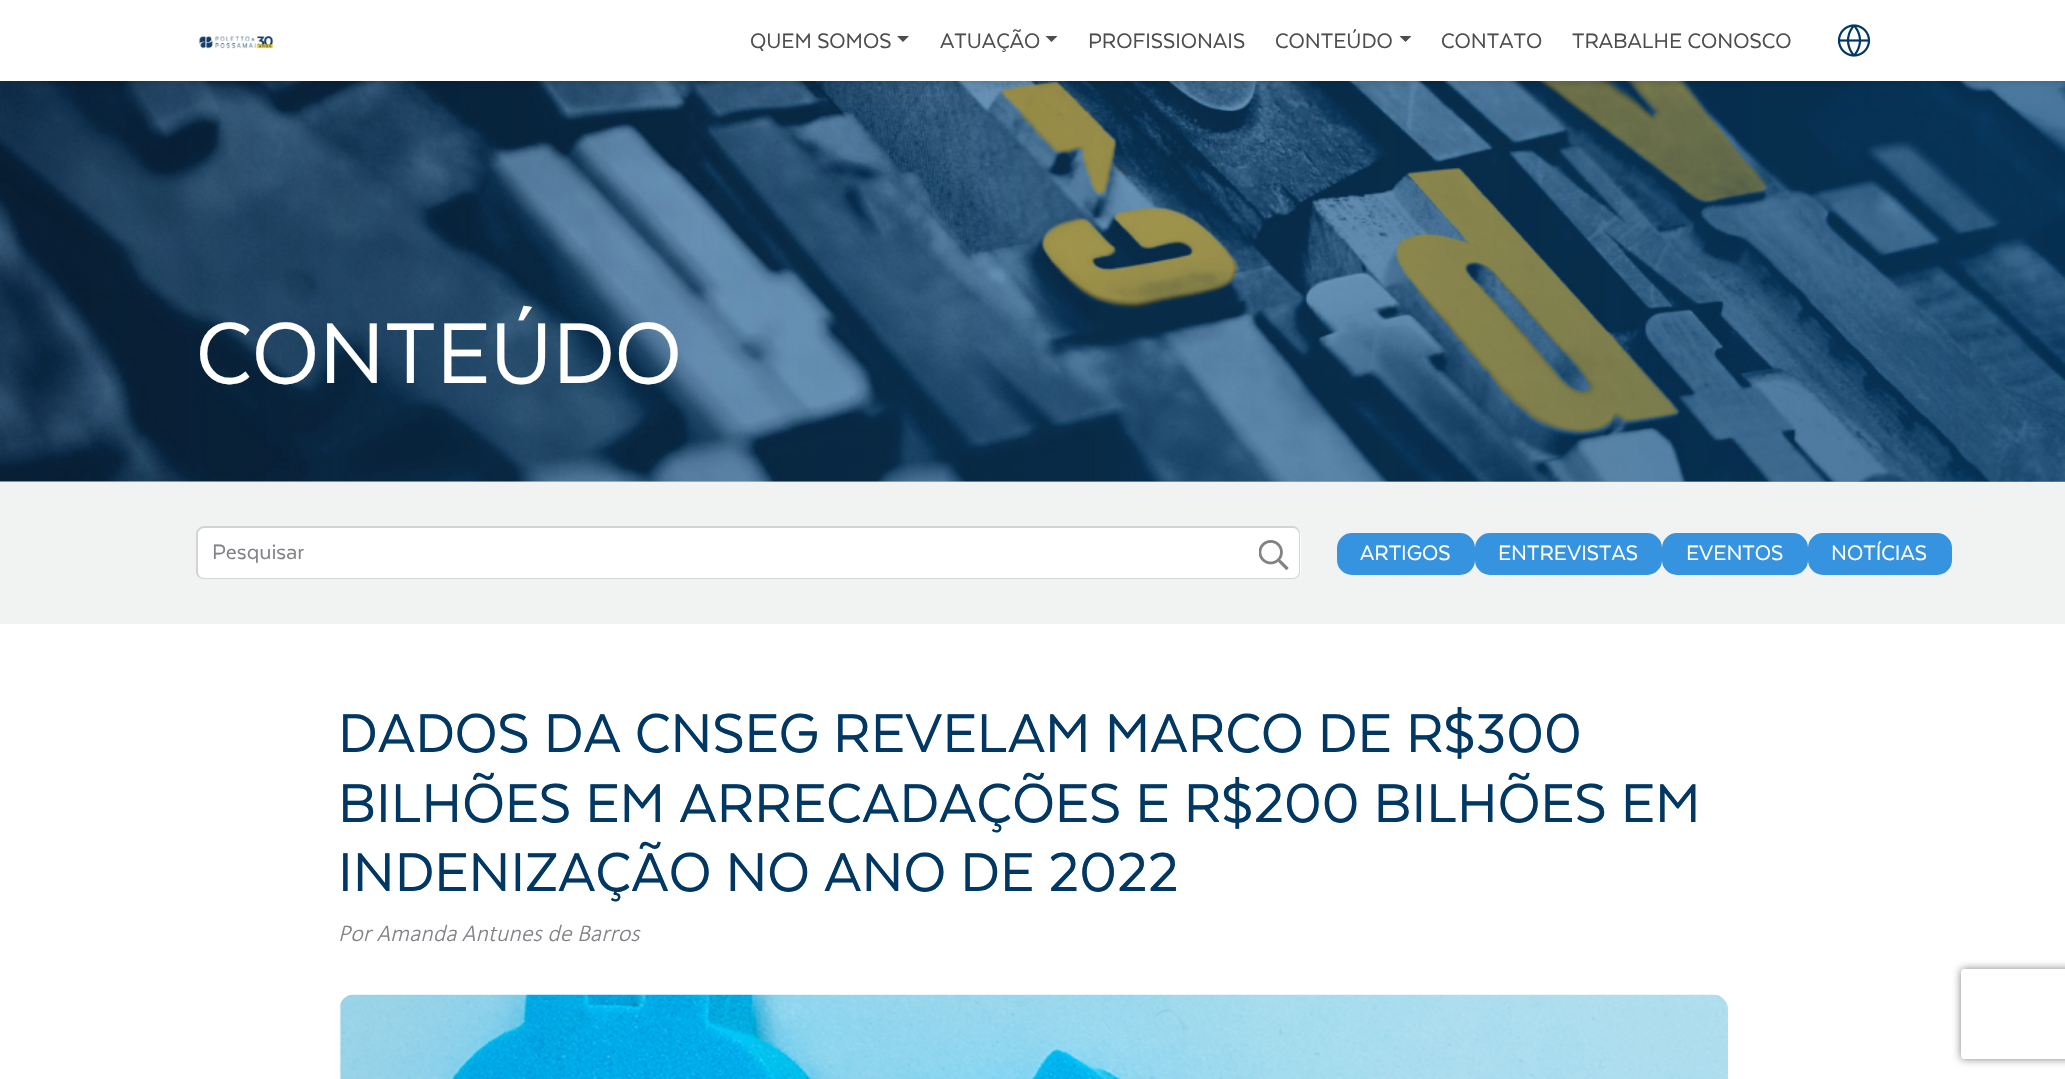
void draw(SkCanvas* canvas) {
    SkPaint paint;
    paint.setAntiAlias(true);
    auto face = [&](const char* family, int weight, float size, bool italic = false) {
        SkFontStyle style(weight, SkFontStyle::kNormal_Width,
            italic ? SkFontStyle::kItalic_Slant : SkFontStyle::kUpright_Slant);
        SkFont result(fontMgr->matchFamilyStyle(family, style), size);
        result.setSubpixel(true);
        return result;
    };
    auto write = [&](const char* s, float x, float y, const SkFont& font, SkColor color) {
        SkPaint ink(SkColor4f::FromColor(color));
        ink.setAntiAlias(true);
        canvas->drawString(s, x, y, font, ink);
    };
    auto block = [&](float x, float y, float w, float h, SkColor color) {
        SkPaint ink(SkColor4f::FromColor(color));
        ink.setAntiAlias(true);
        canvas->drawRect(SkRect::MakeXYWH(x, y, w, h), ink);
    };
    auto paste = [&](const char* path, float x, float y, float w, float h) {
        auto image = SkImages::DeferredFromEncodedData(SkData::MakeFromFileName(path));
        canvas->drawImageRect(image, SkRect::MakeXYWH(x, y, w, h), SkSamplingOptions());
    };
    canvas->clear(SK_ColorWHITE);
    paste("pic3.png", 0, 81, 2065, 401);
    {
        const SkColor colors[] = {SkColorSetARGB(0, 0, 55, 99), SkColorSetARGB(128, 0, 55, 99)};
        const float stops[] = {0, 1};
        const SkPoint ends[] = {{0, 241}, {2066, 241}};
        paint.setShader(SkGradientShader::MakeLinear(ends, colors, stops, 2, SkTileMode::kClamp));
        paint.setAlpha(255);
    }
    canvas->drawRect(SkRect::MakeXYWH(89, 81, 1976, 401), paint);
    paint.setShader(nullptr);
    paint.setColor(SkColorSetARGB(51, 0, 0, 0));
    paint.setMaskFilter(SkMaskFilter::MakeBlur(kNormal_SkBlurStyle, 4));
    canvas->drawRect(SkRect::MakeXYWH(0, 0, 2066, 81), paint);
    paint.setMaskFilter(nullptr);
    block(0, 0, 2065, 81, SK_ColorWHITE);
    paste("pic1.png", 199, 36, 75, 13);
    auto kFont1 = face("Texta", 400, 24);
    write("QUEM SOMOS", 750, 48, kFont1, SkColorSetRGB(77, 77, 77));
    paint.setColor(SkColorSetRGB(77, 77, 77));
    canvas->drawPath(SkPathBuilder().moveTo(897, 36).lineTo(909, 36).lineTo(903, 42).close().detach(), paint);
    write("ATUAÇÃO", 940, 48, kFont1, SkColorSetRGB(77, 77, 77));
    canvas->drawPath(SkPathBuilder().moveTo(1045.5f, 36).lineTo(1057.5f, 36).lineTo(1051.5f, 42).close().detach(), paint);
    write("PROFISSIONAIS", 1088, 48, kFont1, SkColorSetRGB(77, 77, 77));
    write("CONTEÚDO", 1275, 48, kFont1, SkColorSetRGB(77, 77, 77));
    canvas->drawPath(SkPathBuilder().moveTo(1399.5f, 36).lineTo(1411.5f, 36).lineTo(1405.5f, 42).close().detach(), paint);
    write("CONTATO", 1441, 48, kFont1, SkColorSetRGB(77, 77, 77));
    write("TRABALHE CONOSCO", 1572, 48, kFont1, SkColorSetRGB(77, 77, 77));
    paste("pic2.png", 1838, 24, 33, 33);
    auto kFont2 = face("Texta", 400, 99);
    write("CONTEÚDO", 196, 383, kFont2, SK_ColorWHITE);
    block(0, 482, 2065, 142, SkColorSetRGB(241, 242, 242));
    paint.setColor(SK_ColorWHITE);
    canvas->drawPath(SkPathBuilder().moveTo(205, 527).lineTo(1250, 527).lineTo(1250, 579).lineTo(205, 579).cubicTo(200.5f, 579, 197, 575.5f, 197, 571).lineTo(197, 535).cubicTo(197, 530.5f, 200.5f, 527, 205, 527).close().detach(), paint);
    paint.setColor(SkColorSetRGB(209, 211, 212));
    canvas->drawPath(SkPathBuilder(SkPathFillType::kEvenOdd).moveTo(204, 526).lineTo(1250, 526).lineTo(1250, 579).lineTo(204, 579).cubicTo(200, 579, 196, 576, 196, 572).lineTo(196, 534).cubicTo(196, 530, 200, 526, 204, 526).close().moveTo(204, 528).lineTo(1250, 528).lineTo(1250, 578).lineTo(204, 578).cubicTo(201, 578, 198, 575, 198, 572).lineTo(198, 534).cubicTo(198, 531, 201, 528, 204, 528).close().detach(), paint);
    write("Pesquisar", 212, 559, kFont1, SkColorSetRGB(128, 130, 133));
    paint.setColor(SK_ColorWHITE);
    canvas->drawPath(SkPathBuilder().moveTo(1250, 527).lineTo(1293, 527).cubicTo(1297.5f, 527, 1301, 530.5f, 1301, 535).lineTo(1301, 571).cubicTo(1301, 575.5f, 1297.5f, 579, 1293, 579).lineTo(1250, 579).close().detach(), paint);
    paint.setColor(SkColorSetRGB(209, 211, 212));
    canvas->drawPath(SkPathBuilder(SkPathFillType::kEvenOdd).moveTo(1250, 526).lineTo(1293, 526).cubicTo(1297, 526, 1300, 530, 1300, 534).lineTo(1300, 572).cubicTo(1300, 576, 1297, 579, 1293, 579).lineTo(1250, 579).close().moveTo(1250, 528).lineTo(1293, 528).cubicTo(1296, 528, 1299, 531, 1299, 534).lineTo(1299, 572).cubicTo(1299, 575, 1296, 578, 1293, 578).lineTo(1250, 578).close().detach(), paint);
    paste("pic4.png", 1259, 540, 30, 30);
    paint.setColor(SkColorSetRGB(54, 147, 224));
    canvas->drawRoundRect(SkRect::MakeXYWH(1338, 534, 136, 40), 14, 14, paint);
    paint.setStyle(SkPaint::kStroke_Style);
    paint.setStrokeWidth(2);
    canvas->drawRoundRect(SkRect::MakeXYWH(1338, 534, 136, 40), 14, 14, paint);
    write("ARTIGOS", 1360, 560, kFont1, SK_ColorWHITE);
    paint.setStyle(SkPaint::kFill_Style);
    canvas->drawRoundRect(SkRect::MakeXYWH(1476, 534, 185, 40), 14, 14, paint);
    paint.setStyle(SkPaint::kStroke_Style);
    canvas->drawRoundRect(SkRect::MakeXYWH(1476, 534, 185, 40), 14, 14, paint);
    write("ENTREVISTAS", 1498, 560, kFont1, SK_ColorWHITE);
    paint.setStyle(SkPaint::kFill_Style);
    canvas->drawRoundRect(SkRect::MakeXYWH(1663, 534, 144, 40), 14, 14, paint);
    paint.setStyle(SkPaint::kStroke_Style);
    canvas->drawRoundRect(SkRect::MakeXYWH(1663, 534, 144, 40), 14, 14, paint);
    write("EVENTOS", 1686, 560, kFont1, SK_ColorWHITE);
    paint.setStyle(SkPaint::kFill_Style);
    canvas->drawRoundRect(SkRect::MakeXYWH(1809, 534, 142, 40), 14, 14, paint);
    paint.setStyle(SkPaint::kStroke_Style);
    canvas->drawRoundRect(SkRect::MakeXYWH(1809, 534, 142, 40), 14, 14, paint);
    write("NOTÍCIAS", 1831, 560, kFont1, SK_ColorWHITE);
    auto kFont3 = face("Texta", 400, 63);
    write("DADOS DA CNSEG REVELAM MARCO DE R$300", 338, 752, kFont3, SkColorSetRGB(0, 55, 99));
    write("BILHÕES EM ARRECADAÇÕES E R$200 BILHÕES EM", 338, 822, kFont3, SkColorSetRGB(0, 55, 99));
    write("INDENIZAÇÃO NO ANO DE 2022", 338, 891, kFont3, SkColorSetRGB(0, 55, 99));
    auto kFont4 = face("Calibri", 300, 24, true);
    write("Por Amanda Antunes de Barros", 338, 941, kFont4, SkColorSetRGB(128, 130, 133));
    paste("pic5.png", 339, 994, 1389, 85);
    canvas->save();
    canvas->clipPath(SkPathBuilder(SkPathFillType::kEvenOdd).moveTo(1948, 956).lineTo(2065, 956).lineTo(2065, 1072).lineTo(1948, 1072).close().moveTo(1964, 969).lineTo(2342, 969).cubicTo(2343.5f, 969, 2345, 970.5f, 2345, 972).lineTo(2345, 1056).cubicTo(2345, 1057.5f, 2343.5f, 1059, 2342, 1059).lineTo(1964, 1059).cubicTo(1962.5f, 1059, 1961, 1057.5f, 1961, 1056).lineTo(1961, 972).cubicTo(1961, 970.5f, 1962.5f, 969, 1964, 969).close().detach(), true);
    paint.setStyle(SkPaint::kFill_Style);
    paint.setColor(SkColorSetRGB(128, 128, 128));
    paint.setMaskFilter(SkMaskFilter::MakeBlur(kNormal_SkBlurStyle, 4));
    canvas->drawRoundRect(SkRect::MakeXYWH(1961, 969, 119, 90), 3, 3, paint);
    paint.setMaskFilter(nullptr);
    canvas->restore();
}
